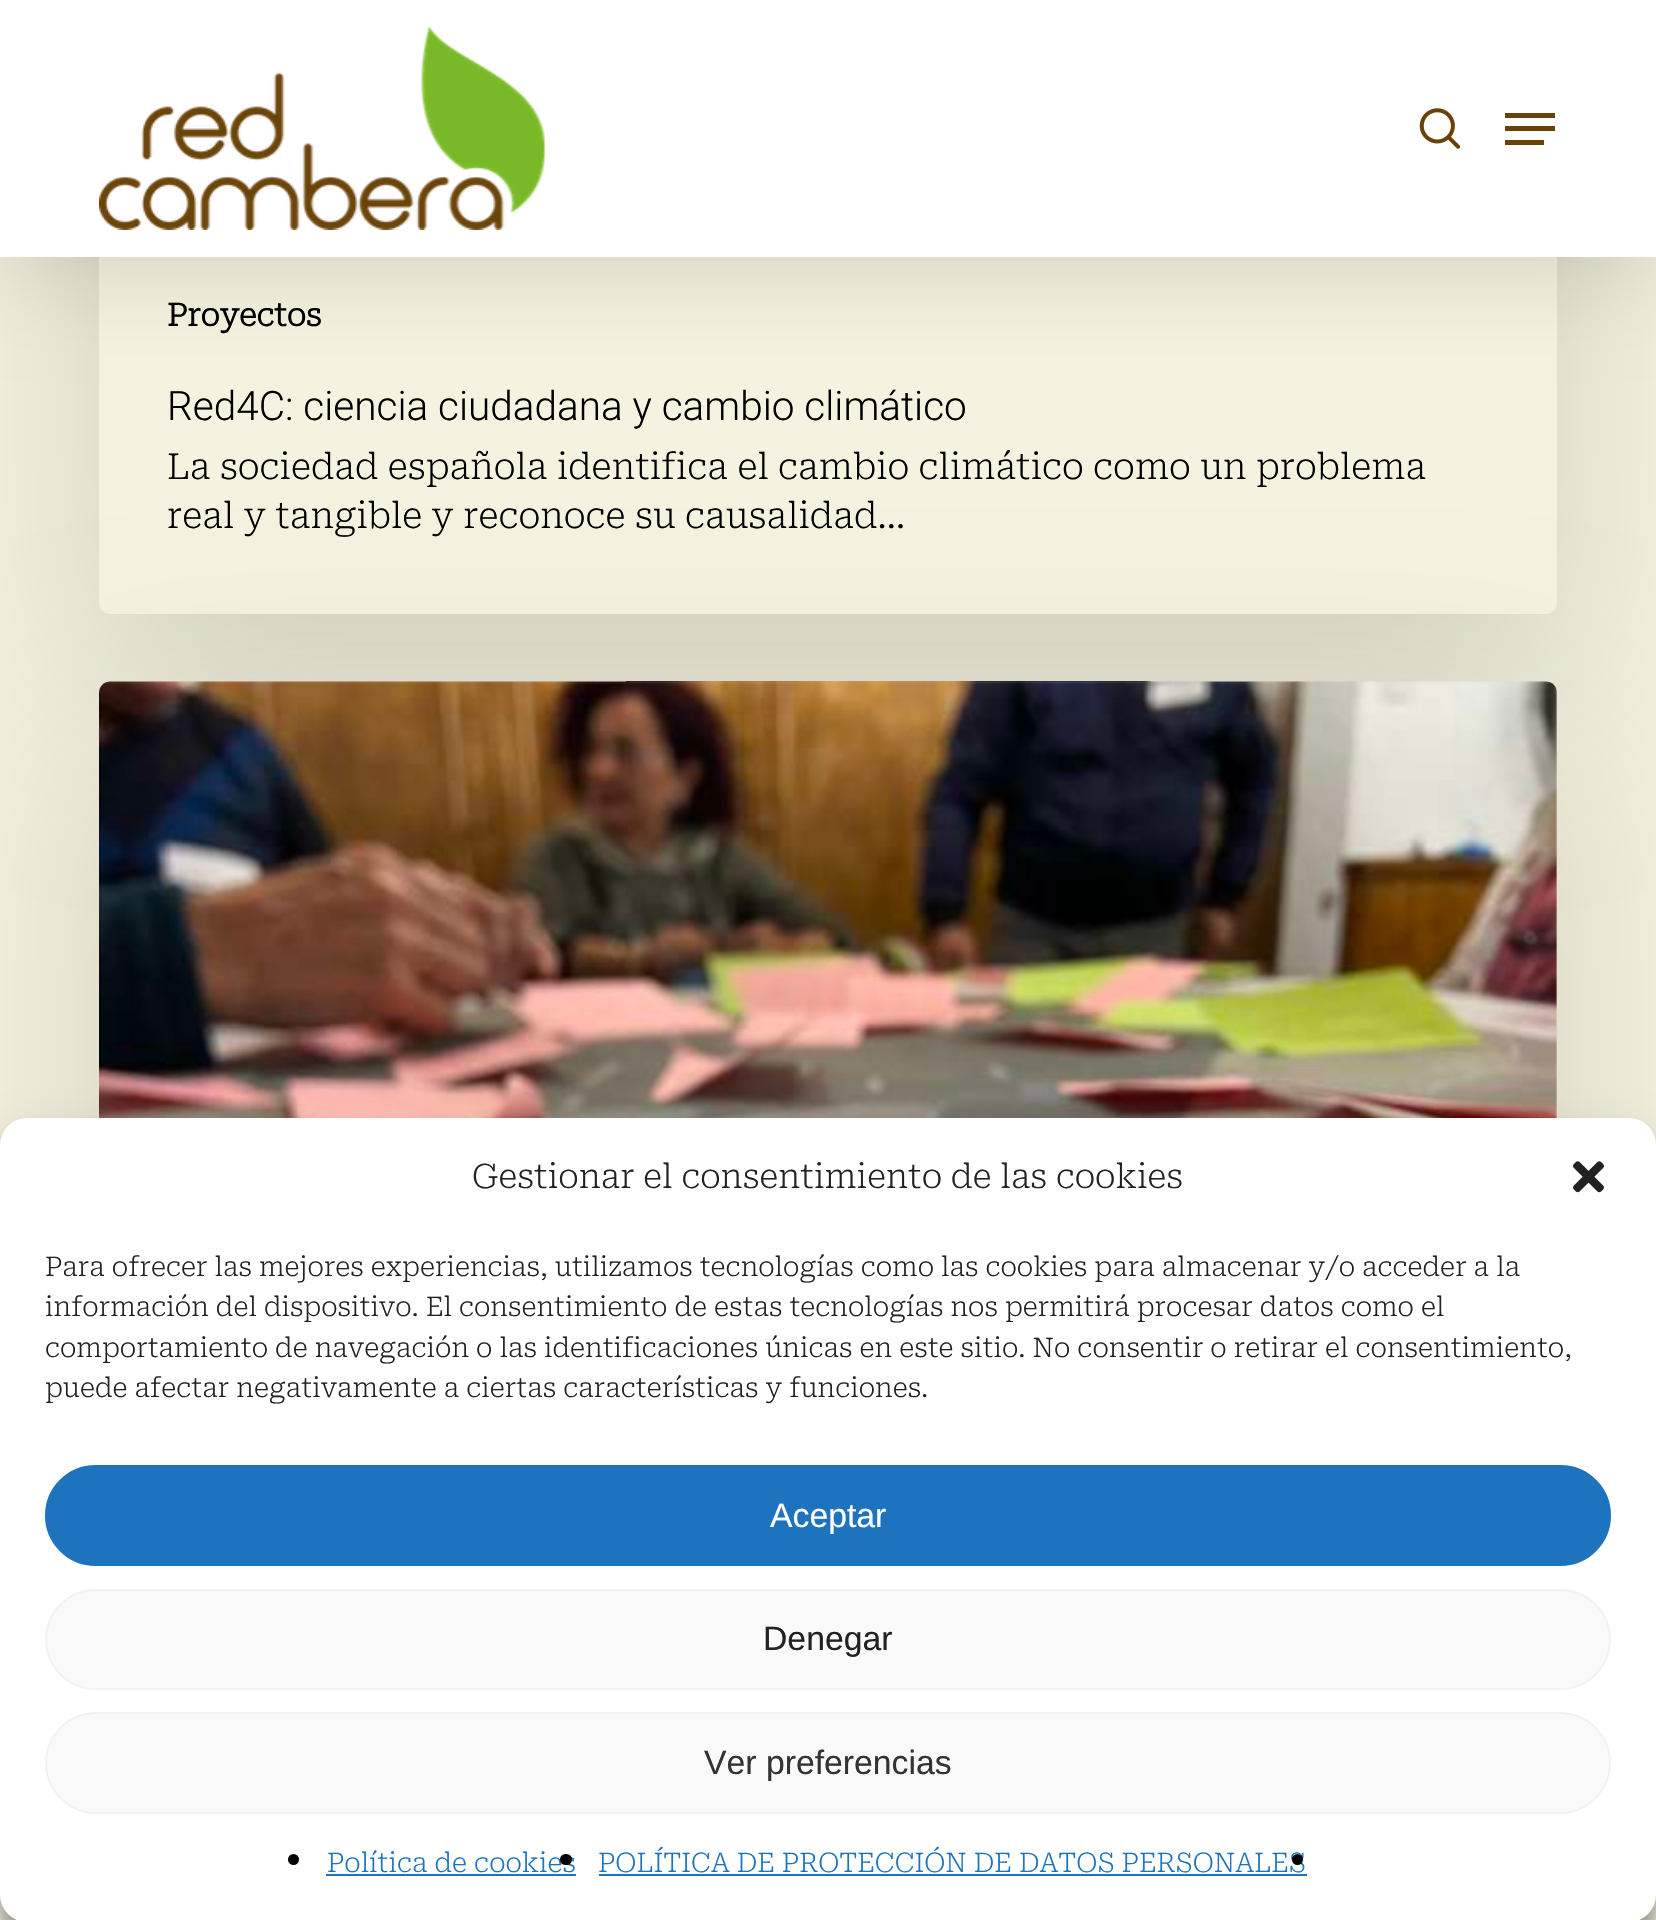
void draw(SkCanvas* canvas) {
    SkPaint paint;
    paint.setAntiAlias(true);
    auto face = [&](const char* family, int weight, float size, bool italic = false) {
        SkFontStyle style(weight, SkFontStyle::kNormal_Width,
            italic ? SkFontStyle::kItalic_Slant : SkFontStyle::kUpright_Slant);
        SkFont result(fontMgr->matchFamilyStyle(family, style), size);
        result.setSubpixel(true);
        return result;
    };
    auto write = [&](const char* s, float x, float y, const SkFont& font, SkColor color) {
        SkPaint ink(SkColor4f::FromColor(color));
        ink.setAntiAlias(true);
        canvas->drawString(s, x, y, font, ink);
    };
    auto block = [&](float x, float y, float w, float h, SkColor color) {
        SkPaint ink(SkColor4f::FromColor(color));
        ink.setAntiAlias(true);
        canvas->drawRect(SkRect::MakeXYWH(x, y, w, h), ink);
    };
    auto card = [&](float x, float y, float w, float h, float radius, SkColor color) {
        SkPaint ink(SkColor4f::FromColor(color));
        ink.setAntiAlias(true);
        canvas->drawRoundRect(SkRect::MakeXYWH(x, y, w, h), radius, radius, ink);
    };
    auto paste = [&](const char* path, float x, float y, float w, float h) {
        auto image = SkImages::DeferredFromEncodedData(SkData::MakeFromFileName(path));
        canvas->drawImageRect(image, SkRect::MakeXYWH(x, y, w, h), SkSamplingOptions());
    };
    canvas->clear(SkColorSetRGB(245, 242, 223));
    paint.setColor(SkColorSetARGB(38, 0, 0, 0));
    paint.setMaskFilter(SkMaskFilter::MakeBlur(kNormal_SkBlurStyle, 50.5f));
    canvas->drawRect(SkRect::MakeXYWH(0, 7, 1656, 256), paint);
    paint.setMaskFilter(nullptr);
    canvas->save();
    canvas->clipPath(SkPathBuilder(SkPathFillType::kEvenOdd).moveTo(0, 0).lineTo(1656, 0).lineTo(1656, 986).lineTo(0, 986).close().moveTo(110, -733).lineTo(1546, -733).cubicTo(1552, -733, 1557, -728, 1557, -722).lineTo(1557, 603).cubicTo(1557, 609, 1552, 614, 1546, 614).lineTo(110, 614).cubicTo(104, 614, 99, 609, 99, 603).lineTo(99, -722).cubicTo(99, -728, 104, -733, 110, -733).close().detach(), true);
    paint.setColor(SkColorSetARGB(36, 0, 0, 0));
    paint.setMaskFilter(SkMaskFilter::MakeBlur(kNormal_SkBlurStyle, 101));
    canvas->drawRoundRect(SkRect::MakeXYWH(99, -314, 1458, 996), 11, 11, paint);
    paint.setMaskFilter(nullptr);
    canvas->restore();
    block(0, 0, 1656, 257, SK_ColorWHITE);
    paste("pic1.png", 99, 27, 446, 203);
    paste("pic2.png", 1419, 108, 42, 41);
    block(1505, 113, 50, 5, SkColorSetRGB(104, 66, 8));
    block(1505, 140, 39, 5, SkColorSetRGB(104, 66, 8));
    block(1505, 126, 50, 5, SkColorSetRGB(104, 66, 8));
    auto kFont1 = face("Roboto Serif", 700, 31.5f);
    write("Proyectos", 167, 326, kFont1, SK_ColorBLACK);
    auto kFont2 = face("Roboto", 300, 40.5f);
    write("Red4C: ciencia ciudadana y cambio climático", 167, 420, kFont2, SK_ColorBLACK);
    auto kFont3 = face("Roboto Serif", 200, 36);
    write("La sociedad española identifica el cambio climático como un problema", 167, 479, kFont3, SK_ColorBLACK);
    write("real y tangible y reconoce su causalidad…", 167, 528, kFont3, SK_ColorBLACK);
    paint.setMaskFilter(SkMaskFilter::MakeBlur(kNormal_SkBlurStyle, 101));
    canvas->drawRoundRect(SkRect::MakeXYWH(99, 749, 1458, 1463), 11, 11, paint);
    paint.setMaskFilter(nullptr);
    paste("pic3.png", 99, 681, 1458, 437);
    paint.setColor(SkColorSetARGB(59, 0, 0, 0));
    paint.setMaskFilter(SkMaskFilter::MakeBlur(kNormal_SkBlurStyle, 7));
    canvas->drawRoundRect(SkRect::MakeXYWH(0, 1132, 1656, 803), 27, 27, paint);
    paint.setMaskFilter(nullptr);
    paint.setColor(SkColorSetARGB(48, 0, 0, 0));
    paint.setMaskFilter(SkMaskFilter::MakeBlur(kNormal_SkBlurStyle, 22.5f));
    canvas->drawRoundRect(SkRect::MakeXYWH(0, 1141, 1656, 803), 27, 27, paint);
    paint.setMaskFilter(nullptr);
    paint.setColor(SkColorSetRGB(128, 128, 128));
    paint.setMaskFilter(SkMaskFilter::MakeBlur(kNormal_SkBlurStyle, 5.5f));
    canvas->drawRoundRect(SkRect::MakeXYWH(1499, 1755, 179, 135), 5, 5, paint);
    paint.setMaskFilter(nullptr);
    card(0, 1118, 1656, 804, 27, SK_ColorWHITE);
    auto kFont4 = face("Roboto Serif", 200, 33.75f);
    write("Gestionar el consentimiento de las cookies", 472, 1188, kFont4, SkColorSetRGB(34, 34, 34));
    paste("pic4.png", 1573, 1161, 31, 32);
    auto kFont5 = face("Roboto Serif", 200, 27);
    write("Para ofrecer las mejores experiencias, utilizamos tecnologías como las cookies para almacenar y/o acceder a la", 45, 1276, kFont5, SkColorSetRGB(34, 34, 34));
    write("información del dispositivo. El consentimiento de estas tecnologías nos permitirá procesar datos como el", 45, 1316, kFont5, SkColorSetRGB(34, 34, 34));
    write("comportamiento de navegación o las identificaciones únicas en este sitio. No consentir o retirar el consentimiento,", 45, 1357, kFont5, SkColorSetRGB(34, 34, 34));
    write("puede afectar negativamente a ciertas características y funciones.", 45, 1397, kFont5, SkColorSetRGB(34, 34, 34));
    paint.setColor(SkColorSetRGB(30, 115, 190));
    canvas->drawRoundRect(SkRect::MakeXYWH(46, 1466, 1564, 99), 49.5f, 49.5f, paint);
    paint.setStyle(SkPaint::kStroke_Style);
    paint.setStrokeWidth(2);
    canvas->drawRoundRect(SkRect::MakeXYWH(46, 1466, 1564, 99), 49.5f, 49.5f, paint);
    auto kFont6 = face("Liberation Sans", 400, 33.75f);
    write("Aceptar", 770, 1527, kFont6, SK_ColorWHITE);
    paint.setStyle(SkPaint::kFill_Style);
    paint.setColor(SkColorSetRGB(249, 249, 249));
    canvas->drawRoundRect(SkRect::MakeXYWH(46, 1590, 1564, 99), 49.5f, 49.5f, paint);
    paint.setStyle(SkPaint::kStroke_Style);
    paint.setColor(SkColorSetRGB(242, 242, 242));
    canvas->drawRoundRect(SkRect::MakeXYWH(46, 1590, 1564, 99), 49.5f, 49.5f, paint);
    write("Denegar", 763, 1650, kFont6, SkColorSetRGB(34, 34, 34));
    paint.setStyle(SkPaint::kFill_Style);
    paint.setColor(SkColorSetRGB(249, 249, 249));
    canvas->drawRoundRect(SkRect::MakeXYWH(46, 1713, 1564, 100), 50, 50, paint);
    paint.setStyle(SkPaint::kStroke_Style);
    paint.setColor(SkColorSetRGB(242, 242, 242));
    canvas->drawRoundRect(SkRect::MakeXYWH(46, 1713, 1564, 100), 50, 50, paint);
    write("Ver preferencias", 704, 1774, kFont6, SkColorSetRGB(51, 51, 51));
    paint.setStyle(SkPaint::kFill_Style);
    paint.setColor(SK_ColorBLACK);
    canvas->drawCircle(293.5f, 1859.5f, 5.5f, paint);
    write("Política de cookies", 327, 1872, kFont5, SkColorSetRGB(30, 115, 190));
    block(326, 1874, 250, 2, SkColorSetRGB(30, 115, 190));
    card(560, 1854, 12, 11, 5.5f, SK_ColorBLACK);
    write("POLÍTICA DE PROTECCIÓN DE DATOS PERSONALES", 598, 1872, kFont5, SkColorSetRGB(30, 115, 190));
    block(599, 1874, 708, 2, SkColorSetRGB(30, 115, 190));
    canvas->drawCircle(1297.5f, 1859.5f, 5.5f, paint);
}
